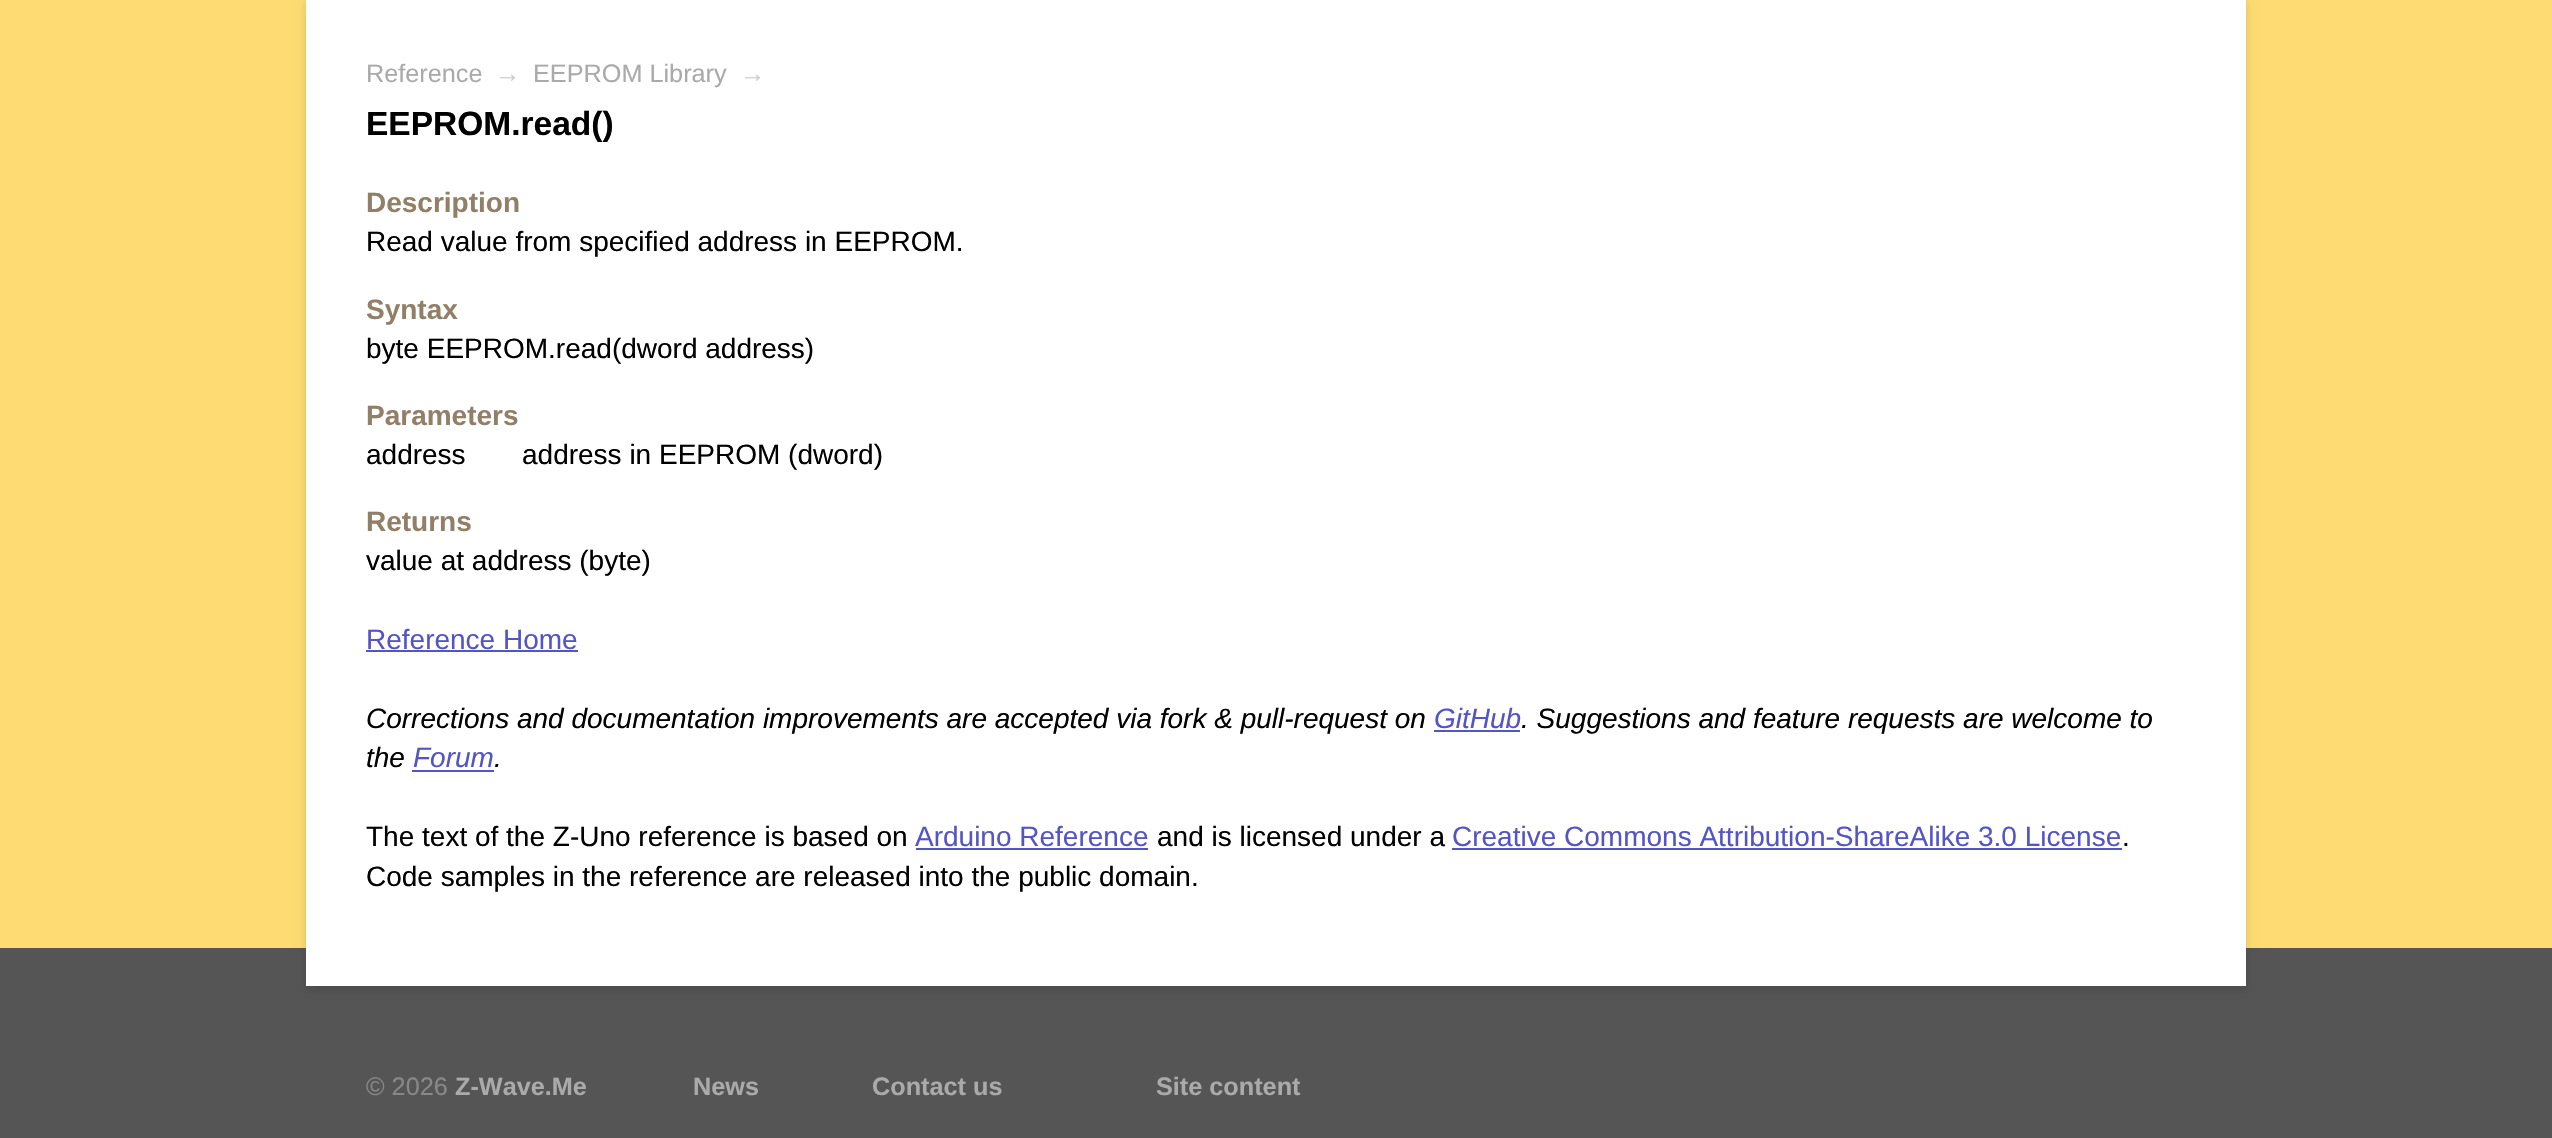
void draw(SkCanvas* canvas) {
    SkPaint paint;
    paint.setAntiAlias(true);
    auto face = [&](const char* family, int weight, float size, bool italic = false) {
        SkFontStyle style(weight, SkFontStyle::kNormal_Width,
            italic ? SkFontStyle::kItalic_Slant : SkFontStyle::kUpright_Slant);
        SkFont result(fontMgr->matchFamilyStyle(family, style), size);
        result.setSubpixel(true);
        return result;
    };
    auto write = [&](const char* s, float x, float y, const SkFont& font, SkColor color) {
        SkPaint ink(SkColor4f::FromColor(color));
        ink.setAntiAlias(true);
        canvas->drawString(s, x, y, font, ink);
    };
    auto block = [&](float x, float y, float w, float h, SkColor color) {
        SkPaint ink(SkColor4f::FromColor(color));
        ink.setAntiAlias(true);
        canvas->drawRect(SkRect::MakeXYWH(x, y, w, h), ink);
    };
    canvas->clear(SkColorSetRGB(254, 220, 115));
    block(0, 948, 2552, 190, SkColorSetRGB(85, 85, 85));
    paint.setColor(SkColorSetARGB(33, 0, 0, 0));
    paint.setMaskFilter(SkMaskFilter::MakeBlur(kNormal_SkBlurStyle, 5));
    canvas->drawRect(SkRect::MakeXYWH(306, 0, 1940, 990), paint);
    paint.setMaskFilter(nullptr);
    block(306, 0, 1940, 986, SK_ColorWHITE);
    auto kFont1 = face("Liberation Sans", 400, 25.25f);
    write("Reference", 366, 82, kFont1, SkColorSetRGB(170, 170, 170));
    write("→", 495, 82, kFont1, SkColorSetRGB(204, 204, 204));
    write("EEPROM Library", 533, 82, kFont1, SkColorSetRGB(170, 170, 170));
    write("→", 740, 82, kFont1, SkColorSetRGB(204, 204, 204));
    auto kFont2 = face("Liberation Sans", 700, 33.5f);
    write("EEPROM.read()", 366, 135, kFont2, SK_ColorBLACK);
    auto kFont3 = face("Liberation Sans", 700, 28);
    write("Description", 366, 212, kFont3, SkColorSetRGB(146, 127, 104));
    auto kFont4 = face("Liberation Sans", 400, 28);
    write("Read value from specified address in EEPROM.", 366, 251, kFont4, SK_ColorBLACK);
    write("Syntax", 366, 319, kFont3, SkColorSetRGB(146, 127, 104));
    write("byte EEPROM.read(dword address)", 366, 358, kFont4, SK_ColorBLACK);
    write("Parameters", 366, 425, kFont3, SkColorSetRGB(146, 127, 104));
    write("address", 366, 464, kFont4, SK_ColorBLACK);
    write("address in EEPROM (dword)", 522, 464, kFont4, SK_ColorBLACK);
    write("Returns", 366, 531, kFont3, SkColorSetRGB(146, 127, 104));
    write("value at address (byte)", 366, 570, kFont4, SK_ColorBLACK);
    write("Reference Home", 366, 649, kFont4, SkColorSetRGB(84, 84, 198));
    block(366, 650, 212, 2, SkColorSetRGB(84, 84, 198));
    auto kFont5 = face("Liberation Sans", 400, 28, true);
    write("Corrections and documentation improvements are accepted via fork & pull-request on", 366, 728, kFont5, SK_ColorBLACK);
    write("GitHub", 1434, 728, kFont5, SkColorSetRGB(84, 84, 198));
    write(". Suggestions and feature requests are welcome to", 1521, 728, kFont5, SK_ColorBLACK);
    block(1434, 730, 86, 2, SkColorSetRGB(84, 84, 198));
    write("the", 366, 767, kFont5, SK_ColorBLACK);
    write("Forum", 413, 767, kFont5, SkColorSetRGB(84, 84, 198));
    write(".", 494, 767, kFont5, SK_ColorBLACK);
    block(412, 770, 82, 2, SkColorSetRGB(84, 84, 198));
    write("The text of the Z-Uno reference is based on", 366, 846, kFont4, SK_ColorBLACK);
    write("Arduino Reference", 915, 846, kFont4, SkColorSetRGB(84, 84, 198));
    block(916, 848, 232, 2, SkColorSetRGB(84, 84, 198));
    write("and is licensed under a", 1157, 846, kFont4, SK_ColorBLACK);
    write("Creative Commons Attribution-ShareAlike 3.0 License", 1452, 846, kFont4, SkColorSetRGB(84, 84, 198));
    block(1452, 848, 670, 2, SkColorSetRGB(84, 84, 198));
    write(".", 2122, 846, kFont4, SK_ColorBLACK);
    write("Code samples in the reference are released into the public domain.", 366, 886, kFont4, SK_ColorBLACK);
    write("© 2026", 366, 1095, kFont1, SkColorSetRGB(136, 136, 136));
    auto kFont6 = face("Liberation Sans", 700, 25.25f);
    write("Z-Wave.Me", 455, 1095, kFont6, SkColorSetRGB(170, 170, 170));
    write("News", 693, 1095, kFont6, SkColorSetRGB(170, 170, 170));
    write("Contact us", 872, 1095, kFont6, SkColorSetRGB(170, 170, 170));
    write("Site content", 1156, 1095, kFont6, SkColorSetRGB(170, 170, 170));
}
